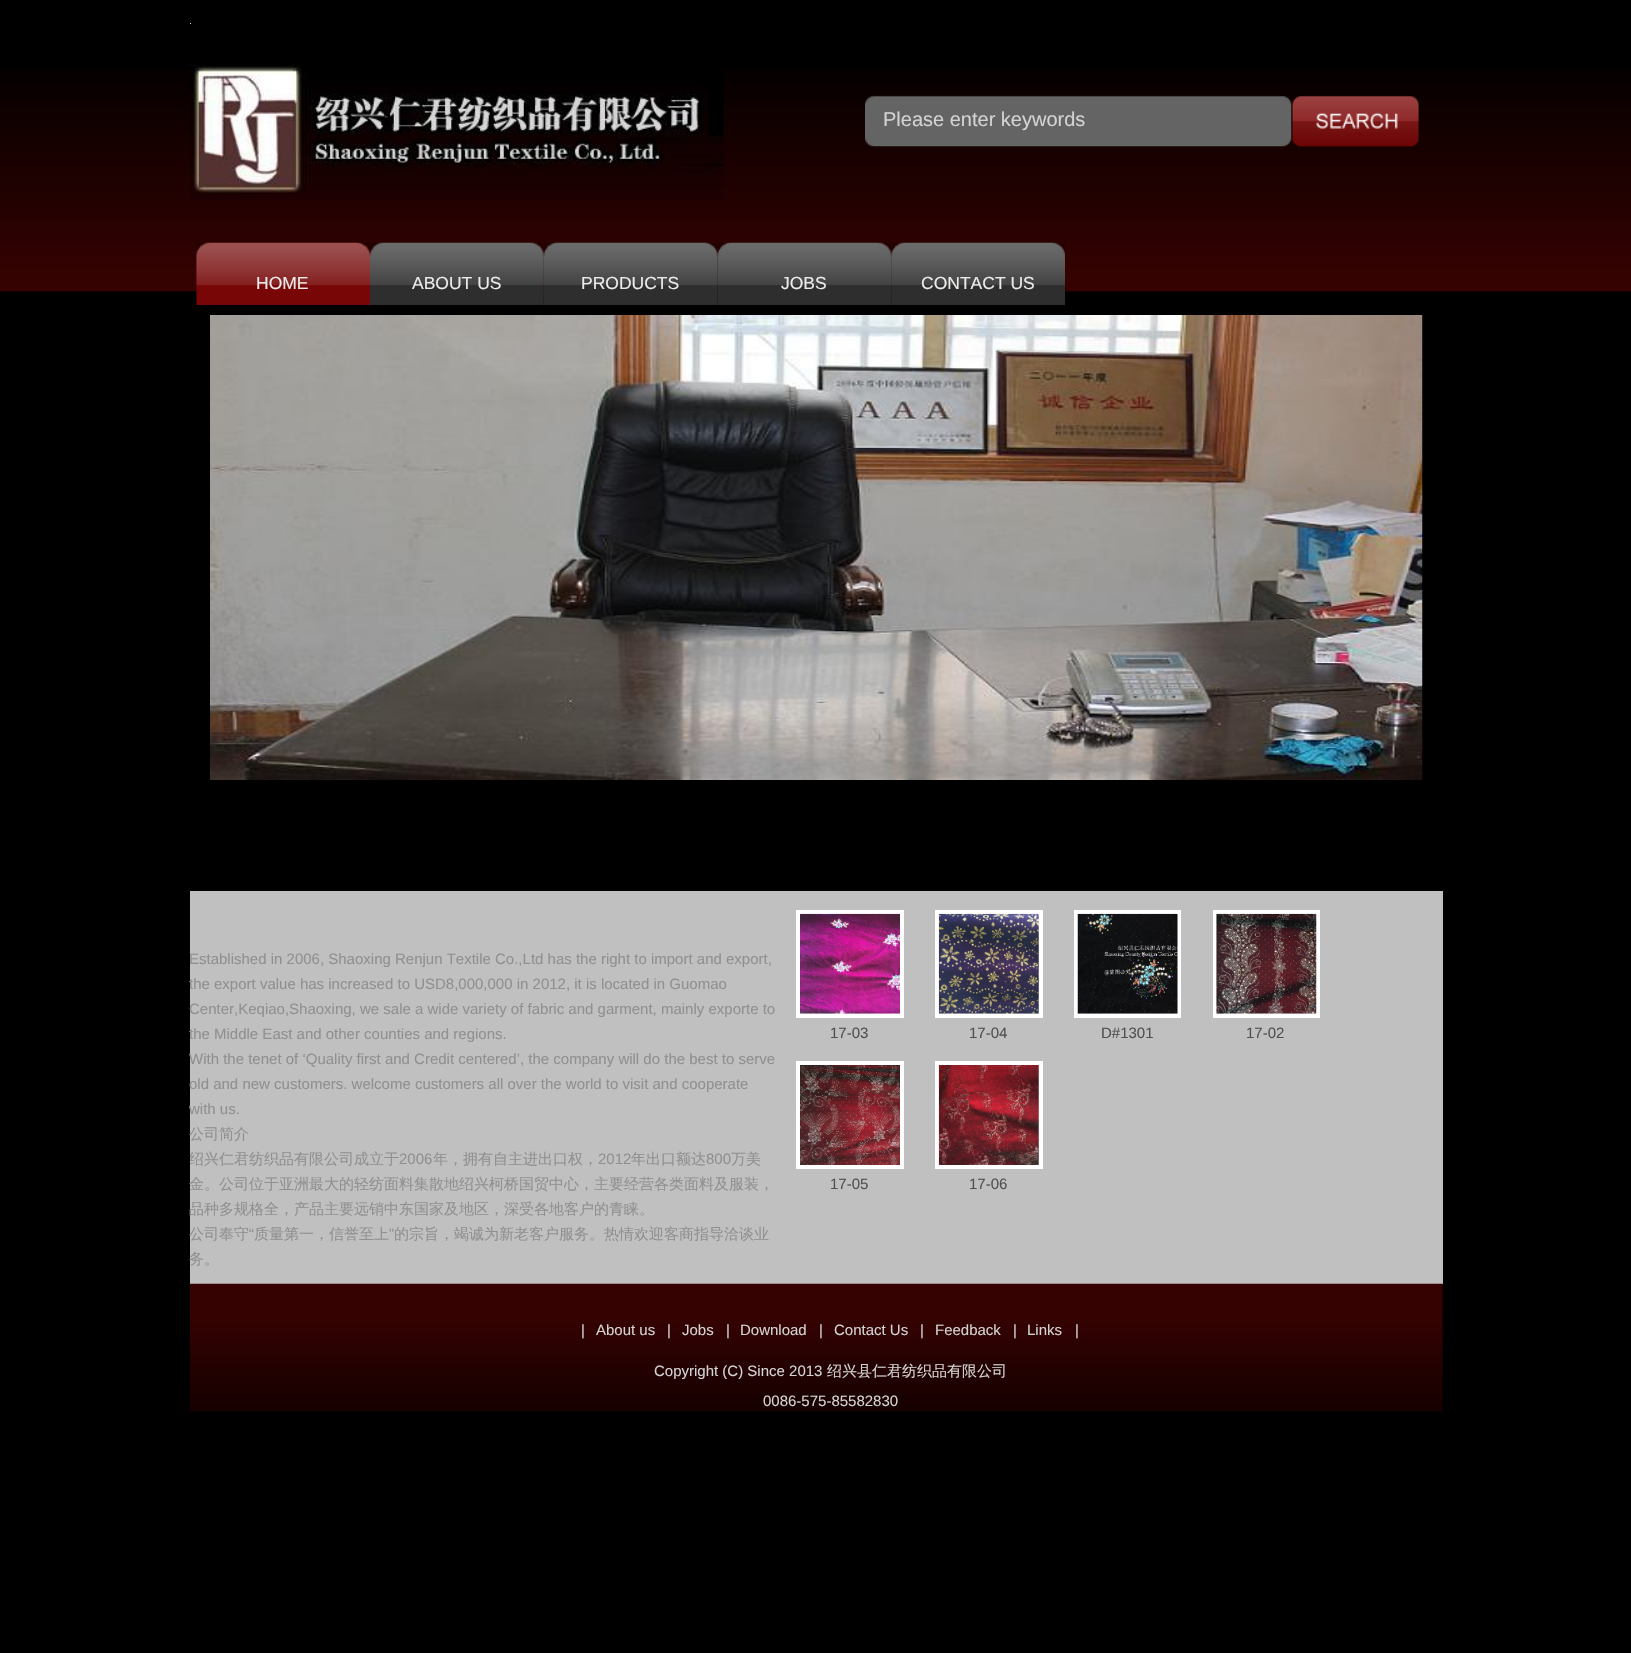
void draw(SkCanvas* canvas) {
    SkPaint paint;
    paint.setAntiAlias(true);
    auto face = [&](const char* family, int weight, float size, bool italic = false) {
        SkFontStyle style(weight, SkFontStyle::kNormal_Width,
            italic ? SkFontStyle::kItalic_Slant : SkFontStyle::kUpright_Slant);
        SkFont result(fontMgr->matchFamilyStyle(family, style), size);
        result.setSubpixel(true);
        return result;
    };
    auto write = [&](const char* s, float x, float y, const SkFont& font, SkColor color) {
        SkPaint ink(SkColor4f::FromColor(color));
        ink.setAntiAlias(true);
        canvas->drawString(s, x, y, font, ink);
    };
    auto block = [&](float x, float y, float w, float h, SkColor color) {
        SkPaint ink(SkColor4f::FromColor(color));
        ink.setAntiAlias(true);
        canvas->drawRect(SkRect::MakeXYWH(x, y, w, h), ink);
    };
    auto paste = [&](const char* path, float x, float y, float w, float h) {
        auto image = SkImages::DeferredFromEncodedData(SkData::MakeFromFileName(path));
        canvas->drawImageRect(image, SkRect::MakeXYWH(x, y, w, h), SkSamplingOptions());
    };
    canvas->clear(SK_ColorBLACK);
    paste("pic1.png", 0, 68, 1631, 224);
    block(190, 23, 1, 1, SkColorSetRGB(221, 221, 221));
    paste("pic2.png", 190, 62, 534, 138);
    paste("pic3.png", 865, 95, 427, 52);
    auto kFont1 = face("Liberation Sans", 400, 20);
    write("Please enter keywords", 883, 126, kFont1, SkColorSetRGB(211, 211, 211));
    paste("pic4.png", 1292, 95, 127, 52);
    paste("pic5.png", 196, 242, 174, 63);
    auto kFont2 = face("Liberation Sans", 400, 17.5f);
    write("HOME", 256, 289, kFont2, SkColorSetRGB(235, 235, 234));
    paste("pic6.png", 370, 242, 174, 63);
    write("ABOUT US", 412, 289, kFont2, SkColorSetRGB(235, 235, 234));
    paste("pic7.png", 543, 242, 175, 63);
    write("PRODUCTS", 581, 289, kFont2, SkColorSetRGB(235, 235, 234));
    paste("pic8.png", 717, 242, 175, 63);
    write("JOBS", 781, 289, kFont2, SkColorSetRGB(235, 235, 234));
    paste("pic9.png", 891, 242, 174, 63);
    write("CONTACT US", 921, 289, kFont2, SkColorSetRGB(235, 235, 234));
    paste("pic10.png", 210, 315, 1213, 465);
    block(190, 891, 1253, 393, SkColorSetRGB(192, 192, 192));
    auto kFont3 = face("Liberation Sans", 400, 15);
    write("Established in 2006, Shaoxing Renjun Textile Co.,Ltd has the right to import and export,", 189, 964, kFont3, SkColorSetRGB(144, 144, 144));
    write("the export value has increased to USD8,000,000 in 2012, it is located in Guomao", 189, 989, kFont3, SkColorSetRGB(144, 144, 144));
    write("Center,Keqiao,Shaoxing, we sale a wide variety of fabric and garment, mainly exporte to", 189, 1014, kFont3, SkColorSetRGB(144, 144, 144));
    write("the Middle East and other counties and regions.", 189, 1039, kFont3, SkColorSetRGB(144, 144, 144));
    write("With the tenet of ‘Quality first and Credit centered’, the company will do the best to serve", 189, 1064, kFont3, SkColorSetRGB(144, 144, 144));
    write("old and new customers. welcome customers all over the world to visit and cooperate", 189, 1089, kFont3, SkColorSetRGB(144, 144, 144));
    write("with us.", 189, 1114, kFont3, SkColorSetRGB(144, 144, 144));
    auto kFont4 = face("WenQuanYi Zen Hei", 500, 15);
    write("公司简介", 189, 1139, kFont4, SkColorSetRGB(144, 144, 144));
    canvas->save();
    canvas->clipRect(SkRect::MakeXYWH(190, 894, 590, 390));
    write("绍兴仁君纺织品有限公司成立于", 189, 1164, kFont4, SkColorSetRGB(144, 144, 144));
    canvas->restore();
    write("2006", 399, 1164, kFont3, SkColorSetRGB(144, 144, 144));
    write("年，拥有自主进出口权，", 433, 1164, kFont4, SkColorSetRGB(144, 144, 144));
    write("2012", 598, 1164, kFont3, SkColorSetRGB(144, 144, 144));
    write("年出口额达", 631, 1164, kFont4, SkColorSetRGB(144, 144, 144));
    write("800", 706, 1164, kFont3, SkColorSetRGB(144, 144, 144));
    write("万美", 731, 1164, kFont4, SkColorSetRGB(144, 144, 144));
    write("金。公司位于亚洲最大的轻纺面料集散地绍兴柯桥国贸中心，主要经营各类面料及服装，", 189, 1189, kFont4, SkColorSetRGB(144, 144, 144));
    write("品种多规格全，产品主要远销中东国家及地区，深受各地客户的青睐。", 189, 1214, kFont4, SkColorSetRGB(144, 144, 144));
    write("公司奉守", 189, 1239, kFont4, SkColorSetRGB(144, 144, 144));
    write("“", 249, 1239, kFont3, SkColorSetRGB(144, 144, 144));
    write("质量第一，信誉至上", 254, 1239, kFont4, SkColorSetRGB(144, 144, 144));
    write("”", 389, 1239, kFont3, SkColorSetRGB(144, 144, 144));
    write("的宗旨，竭诚为新老客户服务。热情欢迎客商指导洽谈业", 394, 1239, kFont4, SkColorSetRGB(144, 144, 144));
    write("务。", 189, 1264, kFont4, SkColorSetRGB(144, 144, 144));
    block(796, 910, 108, 108, SK_ColorWHITE);
    paste("pic11.png", 800, 913, 100, 101);
    write("17-03", 830, 1038, kFont3, SkColorSetRGB(80, 80, 80));
    block(935, 910, 108, 108, SK_ColorWHITE);
    paste("pic12.png", 938, 913, 101, 101);
    write("17-04", 969, 1038, kFont3, SkColorSetRGB(80, 80, 80));
    block(1074, 910, 107, 108, SK_ColorWHITE);
    paste("pic13.png", 1077, 913, 101, 101);
    write("D#1301", 1101, 1038, kFont3, SkColorSetRGB(80, 80, 80));
    block(1213, 910, 107, 108, SK_ColorWHITE);
    paste("pic14.png", 1216, 913, 101, 101);
    write("17-02", 1246, 1038, kFont3, SkColorSetRGB(80, 80, 80));
    block(796, 1061, 108, 108, SK_ColorWHITE);
    paste("pic15.png", 800, 1065, 100, 100);
    write("17-05", 830, 1189, kFont3, SkColorSetRGB(80, 80, 80));
    block(935, 1061, 108, 108, SK_ColorWHITE);
    paste("pic16.png", 938, 1065, 101, 100);
    write("17-06", 969, 1189, kFont3, SkColorSetRGB(80, 80, 80));
    paste("pic17.png", 190, 1283, 1253, 129);
    write("|", 581, 1335, kFont3, SkColorSetRGB(211, 211, 211));
    write("About us", 596, 1335, kFont3, SkColorSetRGB(211, 211, 211));
    write("|", 667, 1335, kFont3, SkColorSetRGB(211, 211, 211));
    write("Jobs", 682, 1335, kFont3, SkColorSetRGB(211, 211, 211));
    write("|", 726, 1335, kFont3, SkColorSetRGB(211, 211, 211));
    write("Download", 740, 1335, kFont3, SkColorSetRGB(211, 211, 211));
    write("|", 819, 1335, kFont3, SkColorSetRGB(211, 211, 211));
    write("Contact Us", 834, 1335, kFont3, SkColorSetRGB(211, 211, 211));
    write("|", 920, 1335, kFont3, SkColorSetRGB(211, 211, 211));
    write("Feedback", 935, 1335, kFont3, SkColorSetRGB(211, 211, 211));
    write("|", 1013, 1335, kFont3, SkColorSetRGB(211, 211, 211));
    write("Links", 1027, 1335, kFont3, SkColorSetRGB(211, 211, 211));
    write("|", 1075, 1335, kFont3, SkColorSetRGB(211, 211, 211));
    write("Copyright (C) Since 2013", 654, 1376, kFont3, SkColorSetRGB(211, 211, 211));
    write("绍兴县仁君纺织品有限公司", 827, 1376, kFont4, SkColorSetRGB(211, 211, 211));
    write("0086-575-85582830", 763, 1406, kFont3, SkColorSetRGB(211, 211, 211));
}
